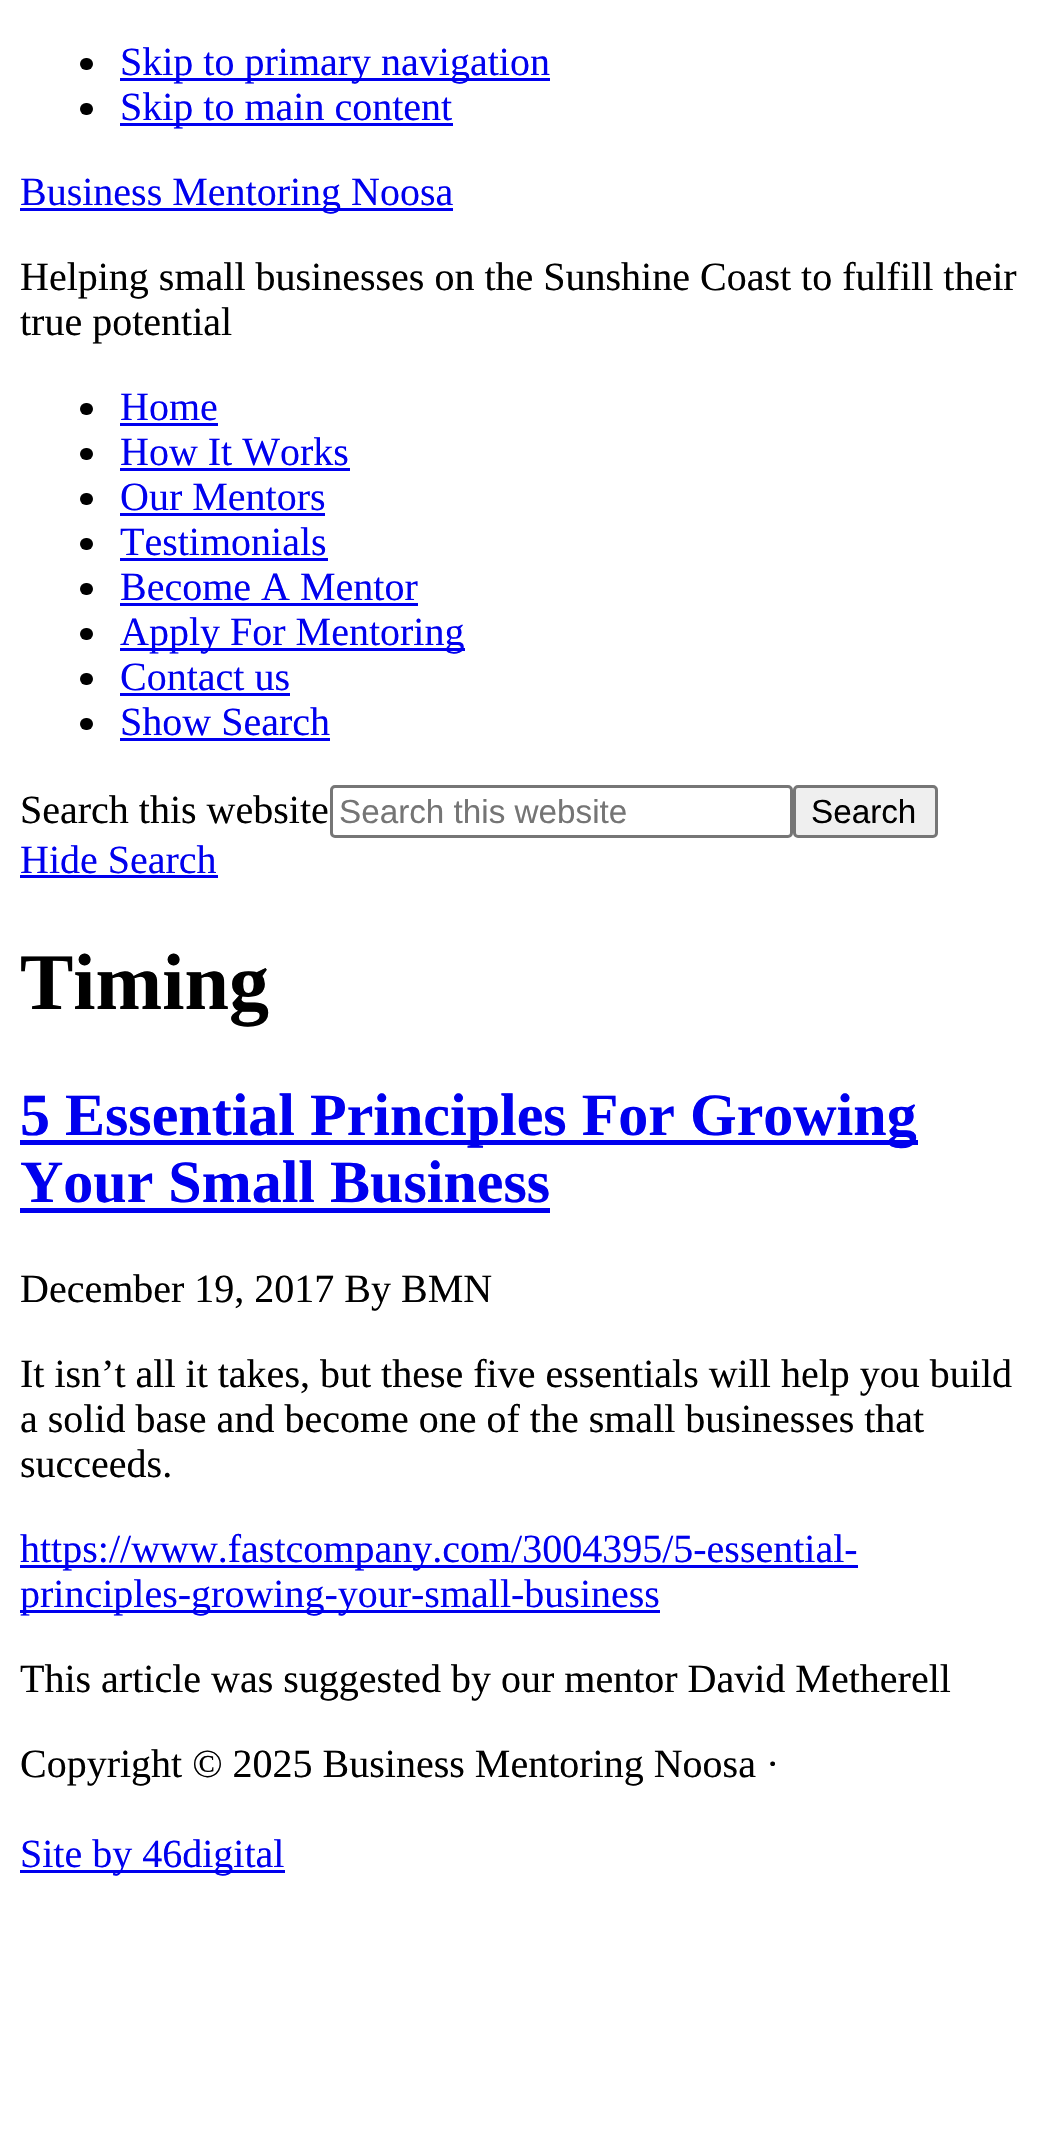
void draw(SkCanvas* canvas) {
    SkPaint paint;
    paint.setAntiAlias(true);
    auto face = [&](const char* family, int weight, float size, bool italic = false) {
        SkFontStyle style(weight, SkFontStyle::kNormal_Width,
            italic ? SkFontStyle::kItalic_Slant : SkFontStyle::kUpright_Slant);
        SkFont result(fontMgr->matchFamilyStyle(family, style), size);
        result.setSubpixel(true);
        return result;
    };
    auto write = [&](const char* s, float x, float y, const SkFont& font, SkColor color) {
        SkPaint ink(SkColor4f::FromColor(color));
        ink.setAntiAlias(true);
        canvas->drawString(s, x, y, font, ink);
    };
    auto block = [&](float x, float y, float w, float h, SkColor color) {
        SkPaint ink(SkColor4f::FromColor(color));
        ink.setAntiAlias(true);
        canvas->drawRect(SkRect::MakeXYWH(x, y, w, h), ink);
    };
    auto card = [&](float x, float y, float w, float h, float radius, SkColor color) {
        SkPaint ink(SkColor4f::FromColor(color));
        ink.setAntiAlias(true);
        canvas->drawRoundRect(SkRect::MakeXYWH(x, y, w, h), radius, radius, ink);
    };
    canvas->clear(SK_ColorWHITE);
    card(80, 58, 13, 12, 6, SK_ColorBLACK);
    block(120, 78, 430, 3, SkColorSetRGB(0, 0, 238));
    auto kFont1 = face("Liberation Serif", 400, 40);
    write("Skip to primary navigation", 120, 75, kFont1, SkColorSetRGB(0, 0, 238));
    card(80, 103, 13, 12, 6, SK_ColorBLACK);
    block(120, 123, 333, 3, SkColorSetRGB(0, 0, 238));
    write("Skip to main content", 120, 120, kFont1, SkColorSetRGB(0, 0, 238));
    block(20, 208, 433, 3, SkColorSetRGB(0, 0, 238));
    write("Business Mentoring Noosa", 20, 205, kFont1, SkColorSetRGB(0, 0, 238));
    write("Helping small businesses on the Sunshine Coast to fulfill their", 20, 290, kFont1, SK_ColorBLACK);
    write("true potential", 20, 335, kFont1, SK_ColorBLACK);
    card(80, 403, 13, 12, 6, SK_ColorBLACK);
    write("Home", 120, 420, kFont1, SkColorSetRGB(0, 0, 238));
    block(120, 423, 98, 3, SkColorSetRGB(0, 0, 238));
    card(80, 448, 13, 12, 6, SK_ColorBLACK);
    write("How It Works", 120, 465, kFont1, SkColorSetRGB(0, 0, 238));
    block(120, 468, 230, 3, SkColorSetRGB(0, 0, 238));
    card(80, 493, 13, 12, 6, SK_ColorBLACK);
    write("Our Mentors", 120, 510, kFont1, SkColorSetRGB(0, 0, 238));
    block(120, 513, 205, 3, SkColorSetRGB(0, 0, 238));
    card(80, 538, 13, 12, 6, SK_ColorBLACK);
    write("Testimonials", 120, 555, kFont1, SkColorSetRGB(0, 0, 238));
    block(120, 558, 208, 3, SkColorSetRGB(0, 0, 238));
    card(80, 583, 13, 12, 6, SK_ColorBLACK);
    write("Become A Mentor", 120, 600, kFont1, SkColorSetRGB(0, 0, 238));
    block(120, 603, 298, 3, SkColorSetRGB(0, 0, 238));
    card(80, 628, 13, 12, 6, SK_ColorBLACK);
    block(120, 648, 345, 3, SkColorSetRGB(0, 0, 238));
    write("Apply For Mentoring", 120, 645, kFont1, SkColorSetRGB(0, 0, 238));
    card(80, 673, 13, 12, 6, SK_ColorBLACK);
    write("Contact us", 120, 690, kFont1, SkColorSetRGB(0, 0, 238));
    block(120, 693, 170, 3, SkColorSetRGB(0, 0, 238));
    card(80, 718, 13, 12, 6, SK_ColorBLACK);
    write("Show Search", 120, 735, kFont1, SkColorSetRGB(0, 0, 238));
    block(120, 738, 210, 3, SkColorSetRGB(0, 0, 238));
    write("Search this website", 20, 823, kFont1, SK_ColorBLACK);
    paint.setStyle(SkPaint::kStroke_Style);
    paint.setStrokeWidth(3);
    paint.setColor(SkColorSetRGB(118, 118, 118));
    canvas->drawRoundRect(SkRect::MakeXYWH(331.5f, 786.5f, 460, 50), 3.5f, 3.5f, paint);
    auto kFont2 = face("Liberation Sans", 400, 33.25f);
    write("Search this website", 339, 823, kFont2, SkColorSetRGB(117, 117, 117));
    paint.setStyle(SkPaint::kFill_Style);
    paint.setColor(SkColorSetRGB(239, 239, 239));
    canvas->drawRoundRect(SkRect::MakeXYWH(794.5f, 786.5f, 142, 50), 3.5f, 3.5f, paint);
    paint.setStyle(SkPaint::kStroke_Style);
    paint.setColor(SkColorSetRGB(118, 118, 118));
    canvas->drawRoundRect(SkRect::MakeXYWH(794.5f, 786.5f, 142, 50), 3.5f, 3.5f, paint);
    write("Search", 811, 823, kFont2, SK_ColorBLACK);
    write("Hide Search", 20, 873, kFont1, SkColorSetRGB(0, 0, 238));
    block(20, 875, 198, 3, SkColorSetRGB(0, 0, 238));
    auto kFont3 = face("Liberation Serif", 700, 80);
    write("Timing", 20, 1009, kFont3, SK_ColorBLACK);
    block(20, 1140, 898, 5, SkColorSetRGB(0, 0, 238));
    auto kFont4 = face("Liberation Serif", 700, 60);
    write("5 Essential Principles For Growing", 20, 1135, kFont4, SkColorSetRGB(0, 0, 238));
    write("Your Small Business", 20, 1202, kFont4, SkColorSetRGB(0, 0, 238));
    block(20, 1208, 530, 5, SkColorSetRGB(0, 0, 238));
    write("December 19, 2017 By BMN", 20, 1302, kFont1, SK_ColorBLACK);
    write("It isn’t all it takes, but these five essentials will help you build", 20, 1387, kFont1, SK_ColorBLACK);
    write("a solid base and become one of the small businesses that", 20, 1432, kFont1, SK_ColorBLACK);
    write("succeeds.", 20, 1477, kFont1, SK_ColorBLACK);
    block(20, 1565, 838, 3, SkColorSetRGB(0, 0, 238));
    write("https://www.fastcompany.com/3004395/5-essential-", 20, 1562, kFont1, SkColorSetRGB(0, 0, 238));
    block(20, 1610, 640, 3, SkColorSetRGB(0, 0, 238));
    write("principles-growing-your-small-business", 20, 1607, kFont1, SkColorSetRGB(0, 0, 238));
    write("This article was suggested by our mentor David Metherell", 20, 1692, kFont1, SK_ColorBLACK);
    write("Copyright © 2025 Business Mentoring Noosa ·", 20, 1777, kFont1, SK_ColorBLACK);
    block(20, 1870, 265, 3, SkColorSetRGB(0, 0, 238));
    write("Site by 46digital", 20, 1867, kFont1, SkColorSetRGB(0, 0, 238));
}
